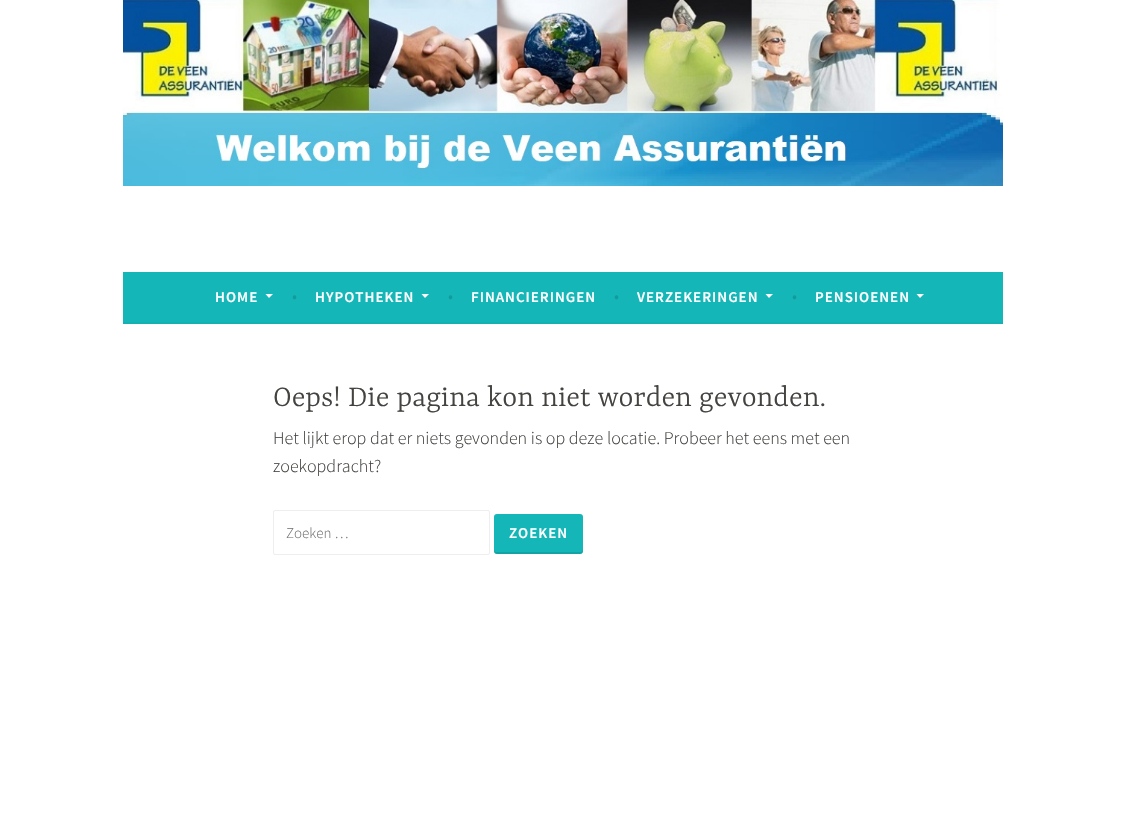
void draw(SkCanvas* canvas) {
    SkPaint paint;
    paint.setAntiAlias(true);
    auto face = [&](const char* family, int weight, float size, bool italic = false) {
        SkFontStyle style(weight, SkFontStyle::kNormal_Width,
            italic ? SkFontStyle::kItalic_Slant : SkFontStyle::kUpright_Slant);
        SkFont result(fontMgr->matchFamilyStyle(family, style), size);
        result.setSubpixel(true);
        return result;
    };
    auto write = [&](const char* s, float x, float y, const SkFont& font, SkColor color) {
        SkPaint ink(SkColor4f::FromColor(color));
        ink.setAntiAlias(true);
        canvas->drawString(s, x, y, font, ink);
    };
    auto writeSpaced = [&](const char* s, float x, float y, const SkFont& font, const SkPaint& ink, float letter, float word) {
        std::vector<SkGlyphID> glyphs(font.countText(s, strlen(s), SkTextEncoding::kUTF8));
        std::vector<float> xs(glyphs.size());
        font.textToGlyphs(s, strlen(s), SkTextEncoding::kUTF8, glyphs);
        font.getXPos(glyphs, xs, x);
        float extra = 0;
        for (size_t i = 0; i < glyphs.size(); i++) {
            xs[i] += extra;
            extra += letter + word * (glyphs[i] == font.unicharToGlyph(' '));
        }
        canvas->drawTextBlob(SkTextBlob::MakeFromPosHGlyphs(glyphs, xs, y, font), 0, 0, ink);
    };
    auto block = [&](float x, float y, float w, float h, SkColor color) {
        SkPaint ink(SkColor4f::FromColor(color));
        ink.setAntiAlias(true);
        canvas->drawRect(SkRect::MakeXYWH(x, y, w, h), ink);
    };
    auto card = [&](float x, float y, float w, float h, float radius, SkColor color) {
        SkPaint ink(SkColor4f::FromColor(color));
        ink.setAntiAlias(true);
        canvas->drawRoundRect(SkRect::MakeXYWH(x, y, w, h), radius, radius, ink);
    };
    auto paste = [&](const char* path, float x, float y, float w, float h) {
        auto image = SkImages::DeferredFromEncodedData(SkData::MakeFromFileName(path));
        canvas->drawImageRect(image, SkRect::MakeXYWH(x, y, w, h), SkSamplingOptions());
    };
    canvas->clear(SK_ColorWHITE);
    paste("pic1.png", 123, 0, 880, 186);
    block(123, 272, 880, 50, SkColorSetRGB(21, 182, 184));
    block(123, 322, 880, 2, SkColorSetRGB(20, 177, 178));
    auto kFont1 = face("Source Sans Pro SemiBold", 600, 15);
    paint.setColor(SK_ColorWHITE);
    writeSpaced("HOME", 215, 302, kFont1, paint, 1, 0);
    canvas->drawPath(SkPathBuilder().moveTo(265.5f, 294).lineTo(273, 294).lineTo(269, 298).close().detach(), paint);
    auto kFont2 = face("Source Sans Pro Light", 300, 18);
    write("•", 292, 302, kFont2, SkColorSetRGB(18, 155, 156));
    writeSpaced("HYPOTHEKEN", 315, 302, kFont1, paint, 1, 0);
    canvas->drawPath(SkPathBuilder().moveTo(421.5f, 294).lineTo(429, 294).lineTo(425, 298).close().detach(), paint);
    write("•", 448, 302, kFont2, SkColorSetRGB(18, 155, 156));
    writeSpaced("FINANCIERINGEN", 471, 302, kFont1, paint, 1, 0);
    write("•", 614, 302, kFont2, SkColorSetRGB(18, 155, 156));
    writeSpaced("VERZEKERINGEN", 637, 302, kFont1, paint, 1, 0);
    canvas->drawPath(SkPathBuilder().moveTo(765.5f, 294).lineTo(773, 294).lineTo(769, 298).close().detach(), paint);
    write("•", 792, 302, kFont2, SkColorSetRGB(18, 155, 156));
    writeSpaced("PENSIOENEN", 815, 302, kFont1, paint, 1, 0);
    canvas->drawPath(SkPathBuilder().moveTo(916.5f, 294).lineTo(924, 294).lineTo(920, 298).close().detach(), paint);
    auto kFont3 = face("Yrsa", 300, 32);
    write("Oeps! Die pagina kon niet worden gevonden.", 273, 406, kFont3, SkColorSetRGB(68, 67, 64));
    write("Het lijkt erop dat er niets gevonden is op deze locatie. Probeer het eens met een", 273, 444, kFont2, SkColorSetRGB(68, 67, 64));
    write("zoekopdracht?", 273, 472, kFont2, SkColorSetRGB(68, 67, 64));
    paint.setStyle(SkPaint::kStroke_Style);
    paint.setStrokeWidth(1);
    paint.setColor(SkColorSetRGB(238, 238, 238));
    canvas->drawRoundRect(SkRect::MakeXYWH(273.5f, 510.5f, 216, 44), 1.5f, 1.5f, paint);
    auto kFont4 = face("Source Sans Pro Light", 300, 15);
    write("Zoeken …", 286, 538, kFont4, SkColorSetRGB(117, 117, 117));
    card(494, 514, 89, 40, 3, SkColorSetRGB(21, 182, 184));
    paint.setStyle(SkPaint::kFill_Style);
    paint.setColor(SkColorSetARGB(26, 0, 0, 0));
    canvas->drawPath(SkPathBuilder().moveTo(494, 549).lineTo(494, 551).cubicTo(494, 553, 495, 554, 497, 554).lineTo(580, 554).cubicTo(582, 554, 583, 553, 583, 551).lineTo(583, 549).cubicTo(583, 551, 582, 552, 580, 552).lineTo(497, 552).cubicTo(495, 552, 494, 551, 494, 549).close().detach(), paint);
    paint.setColor(SK_ColorWHITE);
    writeSpaced("ZOEKEN", 509, 538, kFont1, paint, 1, 0);
}
